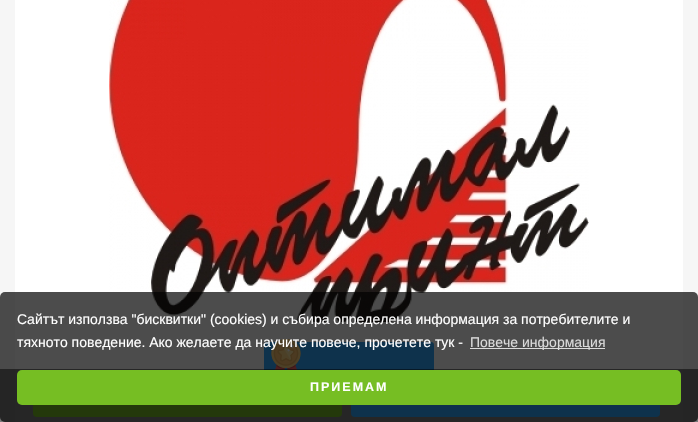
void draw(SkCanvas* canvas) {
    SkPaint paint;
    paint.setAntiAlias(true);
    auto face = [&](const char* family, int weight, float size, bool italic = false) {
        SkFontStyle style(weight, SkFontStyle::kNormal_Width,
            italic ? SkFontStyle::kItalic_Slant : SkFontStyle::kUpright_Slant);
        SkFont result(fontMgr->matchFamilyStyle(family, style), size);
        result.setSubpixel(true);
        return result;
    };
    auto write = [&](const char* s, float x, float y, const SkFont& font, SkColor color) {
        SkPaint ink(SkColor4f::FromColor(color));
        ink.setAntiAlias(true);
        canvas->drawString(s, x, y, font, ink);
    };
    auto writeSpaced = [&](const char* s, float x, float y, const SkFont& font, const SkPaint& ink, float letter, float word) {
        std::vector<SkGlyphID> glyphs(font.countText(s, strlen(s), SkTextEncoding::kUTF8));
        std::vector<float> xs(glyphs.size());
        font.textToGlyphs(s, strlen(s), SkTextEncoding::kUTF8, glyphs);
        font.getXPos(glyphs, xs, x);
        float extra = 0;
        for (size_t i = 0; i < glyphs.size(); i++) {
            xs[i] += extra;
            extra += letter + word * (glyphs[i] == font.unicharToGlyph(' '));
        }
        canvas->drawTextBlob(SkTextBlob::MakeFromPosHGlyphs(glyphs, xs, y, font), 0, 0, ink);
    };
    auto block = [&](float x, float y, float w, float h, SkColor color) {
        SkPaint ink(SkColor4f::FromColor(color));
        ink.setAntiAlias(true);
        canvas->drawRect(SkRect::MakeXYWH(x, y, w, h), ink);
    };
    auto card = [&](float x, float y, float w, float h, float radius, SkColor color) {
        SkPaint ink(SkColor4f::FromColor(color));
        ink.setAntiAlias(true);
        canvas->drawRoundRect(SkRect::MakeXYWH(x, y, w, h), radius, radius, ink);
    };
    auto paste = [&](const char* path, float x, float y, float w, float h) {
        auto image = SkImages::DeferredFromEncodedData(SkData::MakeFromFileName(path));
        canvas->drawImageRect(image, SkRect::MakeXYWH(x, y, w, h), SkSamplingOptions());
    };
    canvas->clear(SkColorSetRGB(246, 246, 246));
    block(15, 0, 668, 422, SK_ColorWHITE);
    paste("pic1.png", 109, 0, 480, 322);
    paint.setColor(SkColorSetRGB(44, 168, 255));
    canvas->drawRoundRect(SkRect::MakeXYWH(265, 343, 168, 30), 2, 2, paint);
    paint.setStyle(SkPaint::kStroke_Style);
    paint.setStrokeWidth(2);
    canvas->drawRoundRect(SkRect::MakeXYWH(265, 343, 168, 30), 2, 2, paint);
    paste("pic2.png", 271, 339, 30, 31);
    block(0, 369, 698, 53, SkColorSetARGB(128, 0, 0, 0));
    card(33, 374, 309, 43, 4, SkColorSetRGB(118, 190, 35));
    card(351, 374, 309, 43, 4, SkColorSetRGB(44, 168, 255));
    card(0, 292, 698, 130, 5, SkColorSetARGB(179, 0, 0, 0));
    auto kFont1 = face("Liberation Sans", 400, 14);
    write("Сайтът използва \"бисквитки\" (cookies) и събира определена информация за потребителите и", 17, 324, kFont1, SK_ColorWHITE);
    write("тяхното поведение. Ако желаете да научите повече, прочетете тук -", 17, 347, kFont1, SK_ColorWHITE);
    block(470, 348, 135, 1, SkColorSetRGB(219, 219, 219));
    write("Повече информация", 470, 347, kFont1, SkColorSetRGB(219, 219, 219));
    card(17, 370, 664, 35, 5, SkColorSetRGB(118, 190, 35));
    auto kFont2 = face("Liberation Sans", 700, 12.5f);
    paint.setStyle(SkPaint::kFill_Style);
    paint.setColor(SK_ColorWHITE);
    writeSpaced("ПРИЕМАМ", 310, 391, kFont2, paint, 2, 0);
}
